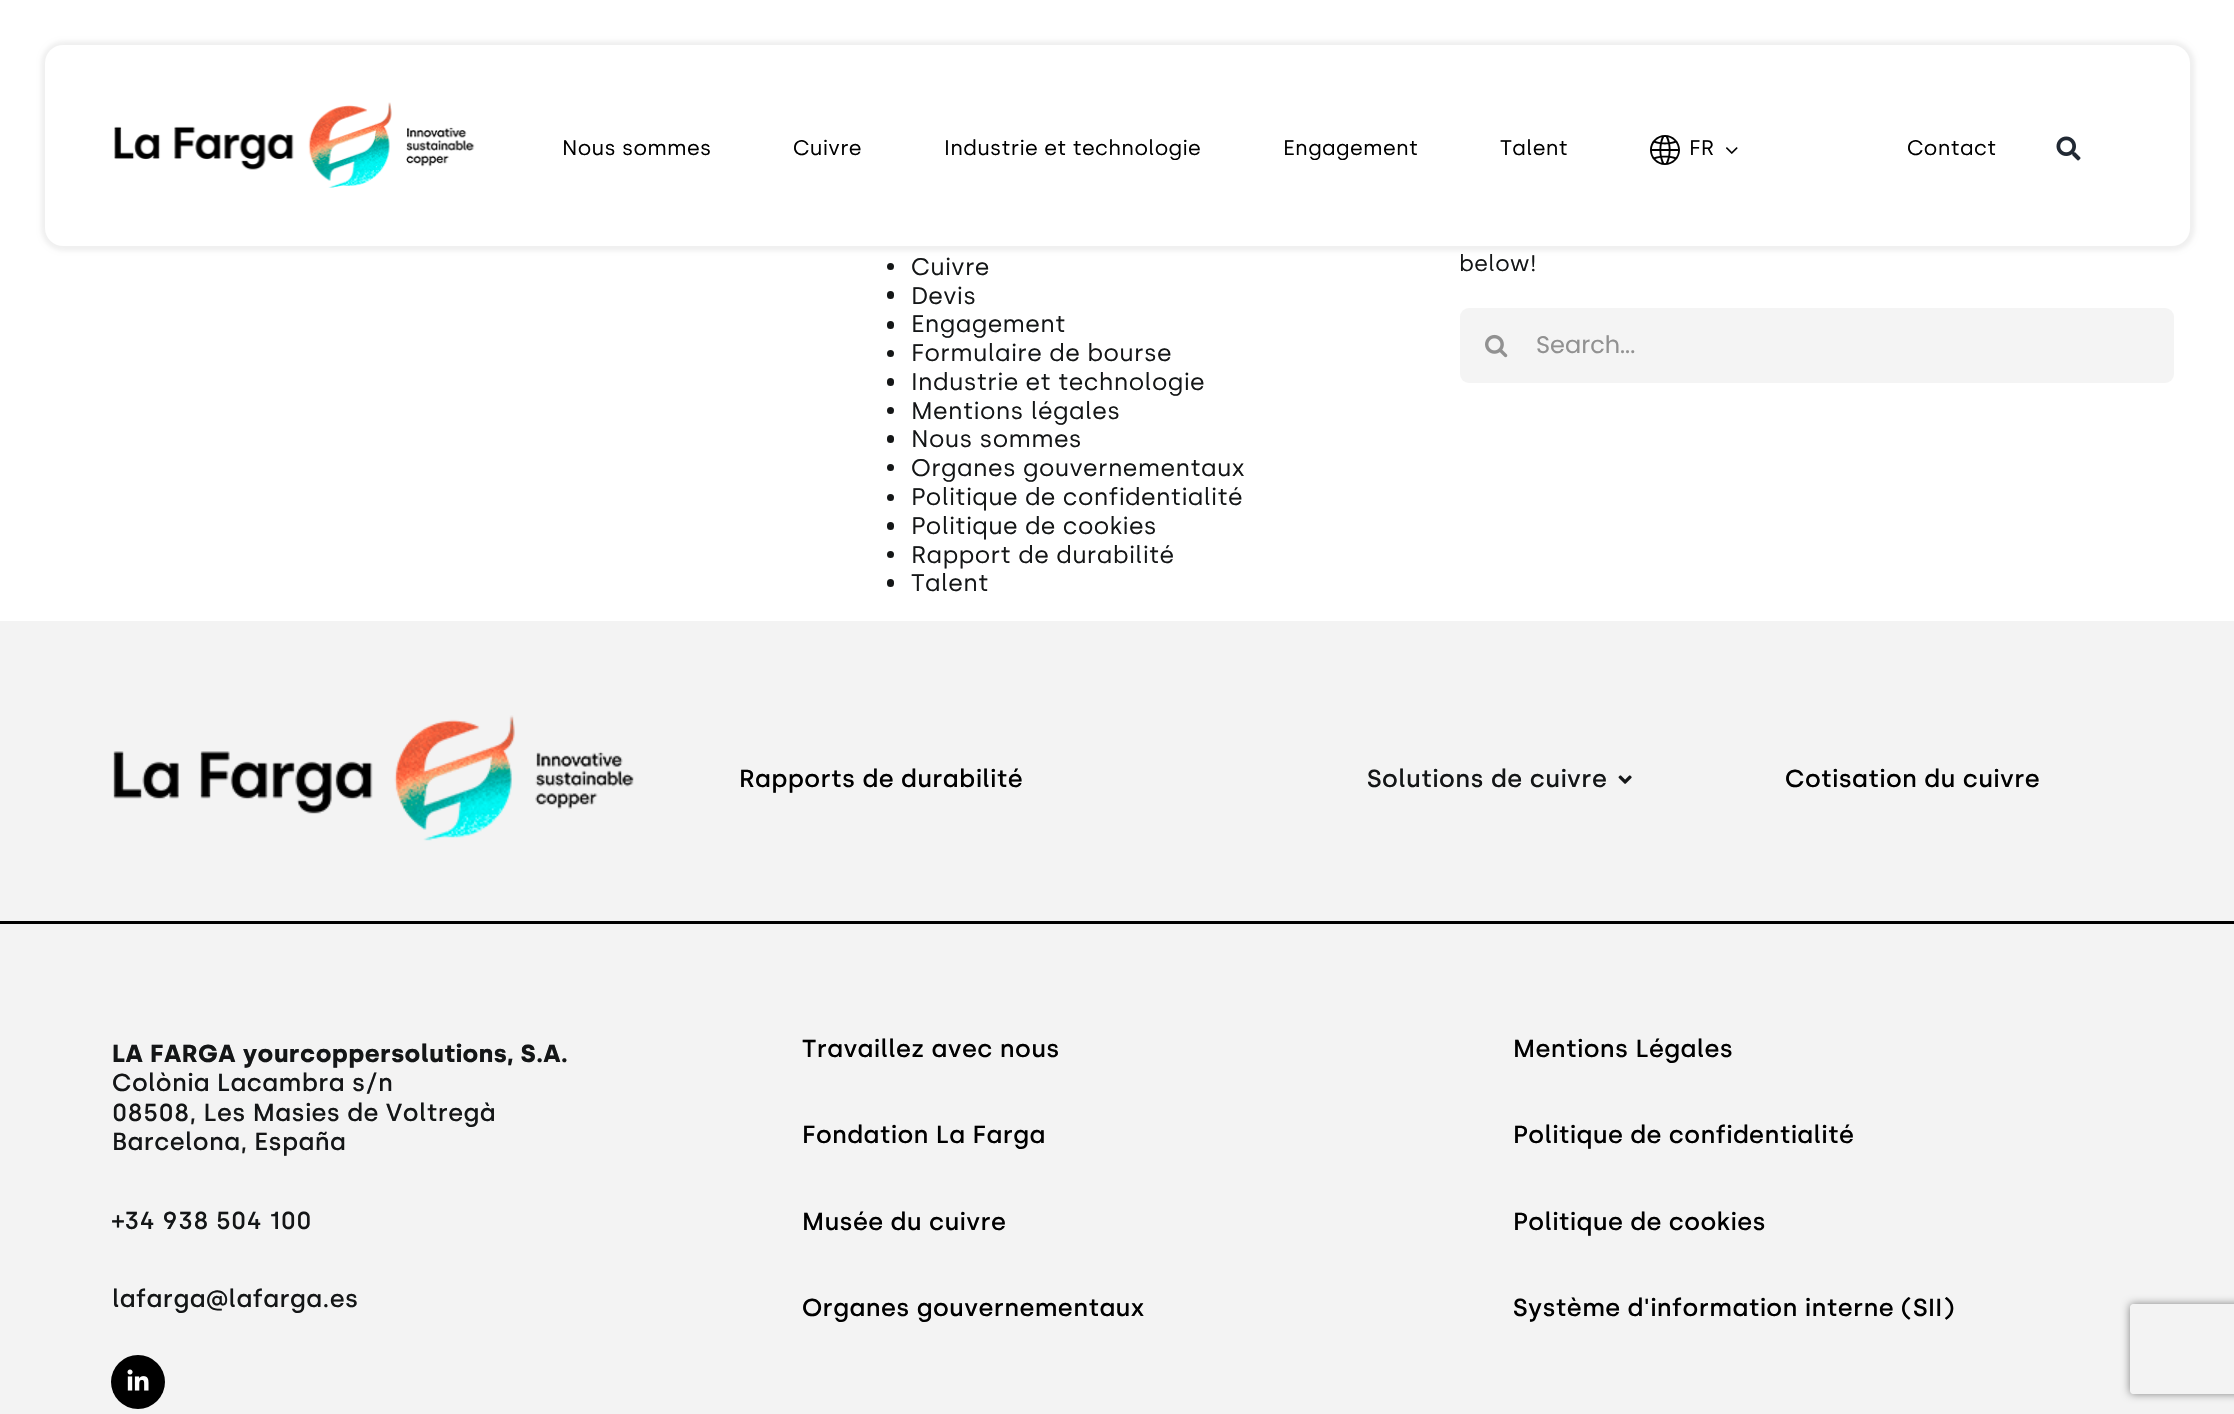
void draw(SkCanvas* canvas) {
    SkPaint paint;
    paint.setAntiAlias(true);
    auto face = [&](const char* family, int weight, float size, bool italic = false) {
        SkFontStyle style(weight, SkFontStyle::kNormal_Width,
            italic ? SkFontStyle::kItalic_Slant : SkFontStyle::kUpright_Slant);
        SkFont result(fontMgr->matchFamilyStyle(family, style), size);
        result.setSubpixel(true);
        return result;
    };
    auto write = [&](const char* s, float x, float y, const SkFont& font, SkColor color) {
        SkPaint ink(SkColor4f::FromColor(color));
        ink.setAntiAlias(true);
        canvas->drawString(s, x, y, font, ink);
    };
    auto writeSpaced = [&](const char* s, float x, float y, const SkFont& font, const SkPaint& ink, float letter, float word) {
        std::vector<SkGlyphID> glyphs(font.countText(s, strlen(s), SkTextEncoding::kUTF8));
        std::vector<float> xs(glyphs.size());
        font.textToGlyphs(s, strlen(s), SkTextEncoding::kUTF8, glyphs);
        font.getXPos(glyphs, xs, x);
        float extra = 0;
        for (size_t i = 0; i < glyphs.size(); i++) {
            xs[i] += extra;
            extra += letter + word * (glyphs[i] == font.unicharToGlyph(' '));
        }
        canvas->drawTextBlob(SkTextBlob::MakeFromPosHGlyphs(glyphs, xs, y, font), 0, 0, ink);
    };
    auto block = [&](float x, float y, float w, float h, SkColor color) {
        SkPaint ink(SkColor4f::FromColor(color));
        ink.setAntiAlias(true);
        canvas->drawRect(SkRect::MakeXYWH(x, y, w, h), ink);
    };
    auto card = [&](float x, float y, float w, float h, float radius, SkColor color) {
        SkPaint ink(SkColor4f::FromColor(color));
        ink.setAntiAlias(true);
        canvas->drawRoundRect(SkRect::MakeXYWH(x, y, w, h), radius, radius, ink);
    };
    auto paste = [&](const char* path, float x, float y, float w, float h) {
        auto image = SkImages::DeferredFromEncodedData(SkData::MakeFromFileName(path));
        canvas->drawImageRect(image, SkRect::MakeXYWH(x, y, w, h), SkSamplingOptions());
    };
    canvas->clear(SK_ColorWHITE);
    paint.setColor(SkColorSetARGB(15, 0, 0, 0));
    paint.setMaskFilter(SkMaskFilter::MakeBlur(kNormal_SkBlurStyle, 2));
    canvas->drawRoundRect(SkRect::MakeXYWH(41, 41, 2154, 210), 23, 23, paint);
    paint.setMaskFilter(nullptr);
    card(45, 45, 2145, 201, 18, SK_ColorWHITE);
    paste("pic1.png", 114, 102, 361, 86);
    auto kFont1 = face("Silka", 400, 21);
    paint.setColor(SK_ColorBLACK);
    writeSpaced("Nous sommes", 562, 155, kFont1, paint, 0.3f, 0);
    writeSpaced("Cuivre", 793, 155, kFont1, paint, 0.3f, 0);
    writeSpaced("Industrie et technologie", 944, 155, kFont1, paint, 0.3f, 0);
    writeSpaced("Engagement", 1283, 155, kFont1, paint, 0.3f, 0);
    writeSpaced("Talent", 1500, 155, kFont1, paint, 0.3f, 0);
    paste("pic2.png", 1650, 135, 30, 30);
    writeSpaced("FR", 1689, 155, kFont1, paint, 0.3f, 0);
    paste("pic3.png", 1726, 147, 12, 7);
    writeSpaced("Contact", 1907, 155, kFont1, paint, 0.3f, 0);
    paste("pic4.png", 2056, 136, 25, 25);
    paint.setColor(SkColorSetRGB(20, 22, 23));
    canvas->drawCircle(890.5f, 266.5f, 3.5f, paint);
    auto kFont2 = face("Silka", 400, 24);
    writeSpaced("Cuivre", 911, 275, kFont2, paint, 0.35f, 0);
    card(887, 291, 7, 8, 3.5f, SkColorSetRGB(20, 22, 23));
    writeSpaced("Devis", 911, 304, kFont2, paint, 0.35f, 0);
    card(887, 321, 7, 8, 3.5f, SkColorSetRGB(20, 22, 23));
    writeSpaced("Engagement", 911, 332, kFont2, paint, 0.35f, 0);
    canvas->drawCircle(890.5f, 353.5f, 3.5f, paint);
    writeSpaced("Formulaire de bourse", 911, 361, kFont2, paint, 0.35f, 0);
    card(887, 378, 7, 8, 3.5f, SkColorSetRGB(20, 22, 23));
    writeSpaced("Industrie et technologie", 911, 390, kFont2, paint, 0.35f, 0);
    canvas->drawCircle(890.5f, 410.5f, 3.5f, paint);
    writeSpaced("Mentions légales", 911, 419, kFont2, paint, 0.35f, 0);
    card(887, 435, 7, 8, 3.5f, SkColorSetRGB(20, 22, 23));
    writeSpaced("Nous sommes", 911, 447, kFont2, paint, 0.35f, 0);
    canvas->drawCircle(890.5f, 467.5f, 3.5f, paint);
    writeSpaced("Organes gouvernementaux", 911, 476, kFont2, paint, 0.35f, 0);
    canvas->drawCircle(890.5f, 497.5f, 3.5f, paint);
    writeSpaced("Politique de confidentialité", 911, 505, kFont2, paint, 0.35f, 0);
    card(887, 522, 7, 8, 3.5f, SkColorSetRGB(20, 22, 23));
    writeSpaced("Politique de cookies", 911, 534, kFont2, paint, 0.35f, 0);
    canvas->drawCircle(890.5f, 554.5f, 3.5f, paint);
    writeSpaced("Rapport de durabilité", 911, 563, kFont2, paint, 0.35f, 0);
    card(887, 579, 7, 8, 3.5f, SkColorSetRGB(20, 22, 23));
    writeSpaced("Talent", 911, 591, kFont2, paint, 0.35f, 0);
    auto kFont3 = face("Silka", 400, 22.5f);
    writeSpaced("below!", 1459, 271, kFont3, paint, 0.35f, 0);
    card(1460, 308, 714, 75, 9, SkColorSetRGB(244, 244, 244));
    paste("pic5.png", 1485, 334, 23, 24);
    auto kFont4 = face("Poppins", 400, 24);
    write("Search...", 1536, 353, kFont4, SkColorSetRGB(145, 145, 145));
    block(0, 621, 2234, 300, SkColorSetRGB(243, 243, 243));
    block(0, 921, 2234, 3, SK_ColorBLACK);
    paste("pic6.png", 113, 715, 521, 126);
    auto kFont5 = face("Silka", 500, 24.6f);
    paint.setColor(SK_ColorBLACK);
    writeSpaced("Rapports de durabilité", 739, 787, kFont5, paint, 0.35f, 0);
    paint.setColor(SkColorSetRGB(20, 22, 23));
    writeSpaced("Solutions de cuivre", 1367, 787, kFont5, paint, 0.4f, 0);
    paste("pic7.png", 1618, 775, 14, 9);
    paint.setColor(SK_ColorBLACK);
    writeSpaced("Cotisation du cuivre", 1785, 787, kFont5, paint, 0.35f, 0);
    block(0, 924, 2234, 490, SkColorSetRGB(243, 243, 243));
    auto kFont6 = face("Silka", 700, 24.6f);
    paint.setColor(SkColorSetRGB(20, 22, 23));
    writeSpaced("LA FARGA yourcoppersolutions, S.A.", 112, 1062, kFont6, paint, 0.35f, 0);
    writeSpaced("Colònia Lacambra s/n", 112, 1091, kFont5, paint, 0.35f, 0);
    writeSpaced("08508, Les Masies de Voltregà", 112, 1121, kFont5, paint, 0.35f, 0);
    writeSpaced("Barcelona, España", 112, 1150, kFont5, paint, 0.35f, 0);
    writeSpaced("+34 938 504 100", 112, 1229, kFont5, paint, 0.35f, 0);
    writeSpaced("lafarga@lafarga.es", 112, 1307, kFont5, paint, 0.35f, 0);
    paint.setColor(SK_ColorBLACK);
    canvas->drawCircle(138, 1382, 27, paint);
    paste("pic8.png", 127, 1369, 22, 22);
    writeSpaced("Travaillez avec nous", 802, 1057, kFont5, paint, 0.35f, 0);
    writeSpaced("Fondation La Farga", 802, 1143, kFont5, paint, 0.35f, 0);
    writeSpaced("Musée du cuivre", 802, 1230, kFont5, paint, 0.35f, 0);
    writeSpaced("Organes gouvernementaux", 802, 1316, kFont5, paint, 0.35f, 0);
    writeSpaced("Mentions Légales", 1513, 1057, kFont5, paint, 0.35f, 0);
    writeSpaced("Politique de confidentialité", 1513, 1143, kFont5, paint, 0.35f, 0);
    writeSpaced("Politique de cookies", 1513, 1230, kFont5, paint, 0.35f, 0);
    writeSpaced("Système d'information interne (SII)", 1513, 1316, kFont5, paint, 0.35f, 0);
    canvas->save();
    canvas->clipPath(SkPathBuilder(SkPathFillType::kEvenOdd).moveTo(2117, 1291).lineTo(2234, 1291).lineTo(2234, 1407).lineTo(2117, 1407).close().moveTo(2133, 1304).lineTo(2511, 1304).cubicTo(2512.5f, 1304, 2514, 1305.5f, 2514, 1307).lineTo(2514, 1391).cubicTo(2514, 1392.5f, 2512.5f, 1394, 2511, 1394).lineTo(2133, 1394).cubicTo(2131.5f, 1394, 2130, 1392.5f, 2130, 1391).lineTo(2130, 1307).cubicTo(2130, 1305.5f, 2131.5f, 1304, 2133, 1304).close().detach(), true);
    paint.setColor(SkColorSetRGB(128, 128, 128));
    paint.setMaskFilter(SkMaskFilter::MakeBlur(kNormal_SkBlurStyle, 4));
    canvas->drawRoundRect(SkRect::MakeXYWH(2130, 1304, 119, 90), 3, 3, paint);
    paint.setMaskFilter(nullptr);
    canvas->restore();
}
